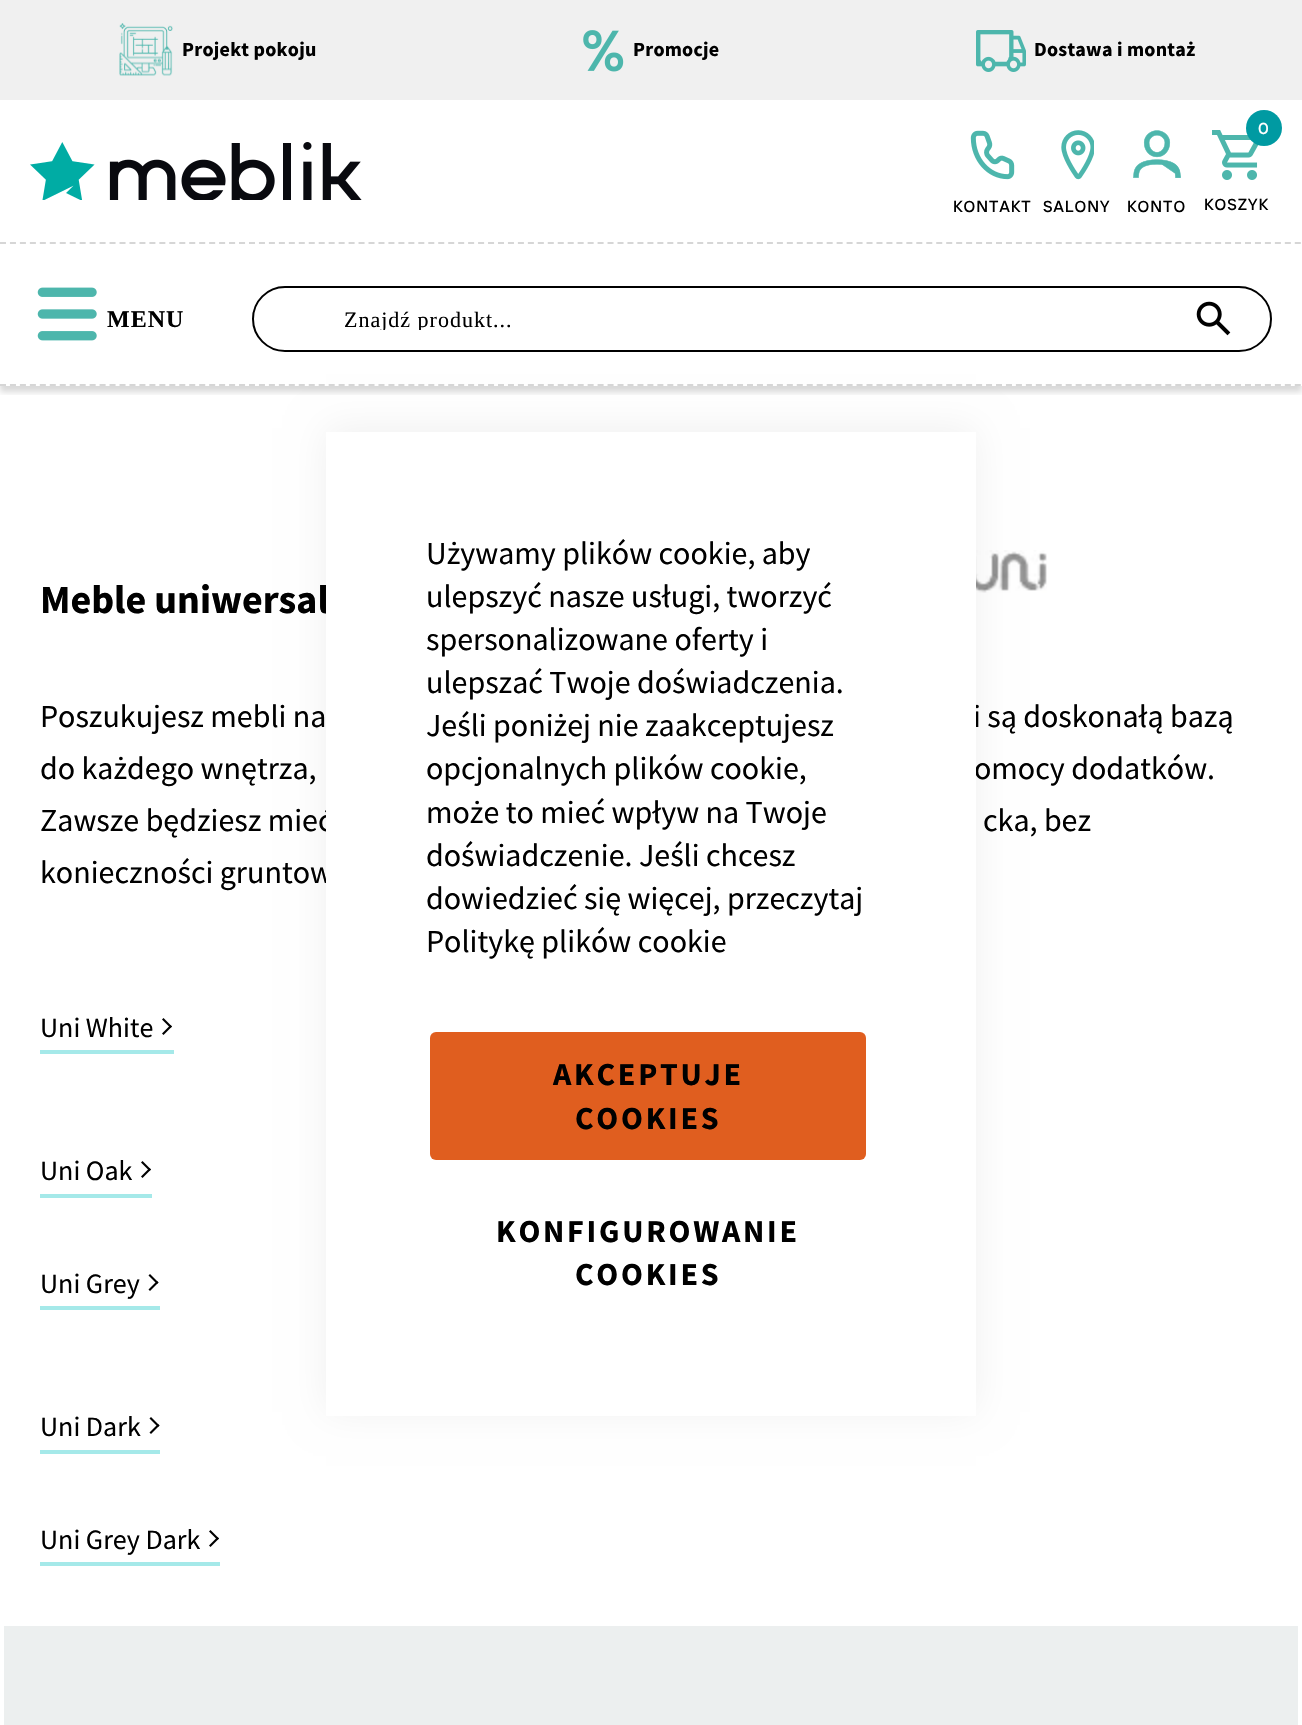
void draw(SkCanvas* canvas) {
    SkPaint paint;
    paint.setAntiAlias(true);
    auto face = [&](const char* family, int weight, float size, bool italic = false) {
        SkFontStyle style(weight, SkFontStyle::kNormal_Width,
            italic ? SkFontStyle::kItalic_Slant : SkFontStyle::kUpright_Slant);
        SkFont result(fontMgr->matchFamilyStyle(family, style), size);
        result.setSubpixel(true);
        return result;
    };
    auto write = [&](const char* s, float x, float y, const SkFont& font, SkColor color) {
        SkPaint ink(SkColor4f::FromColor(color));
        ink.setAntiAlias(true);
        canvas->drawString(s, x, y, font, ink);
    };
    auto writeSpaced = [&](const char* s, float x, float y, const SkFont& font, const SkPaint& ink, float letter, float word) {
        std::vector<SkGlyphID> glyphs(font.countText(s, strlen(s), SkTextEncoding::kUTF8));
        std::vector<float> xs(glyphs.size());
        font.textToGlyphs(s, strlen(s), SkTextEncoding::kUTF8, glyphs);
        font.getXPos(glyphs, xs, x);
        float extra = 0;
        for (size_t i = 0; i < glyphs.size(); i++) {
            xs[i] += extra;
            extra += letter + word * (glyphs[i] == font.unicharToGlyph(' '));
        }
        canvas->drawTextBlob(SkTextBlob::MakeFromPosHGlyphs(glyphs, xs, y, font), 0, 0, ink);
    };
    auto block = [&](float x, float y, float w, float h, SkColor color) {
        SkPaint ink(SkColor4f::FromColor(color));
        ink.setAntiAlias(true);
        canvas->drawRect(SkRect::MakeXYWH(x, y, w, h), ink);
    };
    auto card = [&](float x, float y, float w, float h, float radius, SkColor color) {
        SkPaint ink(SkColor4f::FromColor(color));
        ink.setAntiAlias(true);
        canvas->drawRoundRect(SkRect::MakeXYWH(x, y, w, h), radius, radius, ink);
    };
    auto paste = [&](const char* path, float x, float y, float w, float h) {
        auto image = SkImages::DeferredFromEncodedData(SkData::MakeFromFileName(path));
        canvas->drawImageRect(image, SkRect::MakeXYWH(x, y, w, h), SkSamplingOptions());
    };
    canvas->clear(SK_ColorWHITE);
    block(0, 0, 1302, 100, SkColorSetRGB(240, 240, 240));
    paste("pic1.png", 119, 23, 54, 53);
    auto kFont1 = face("Source Sans Pro", 700, 20);
    paint.setColor(SK_ColorBLACK);
    writeSpaced("Projekt pokoju", 182, 56, kFont1, paint, 0.25f, 0);
    paste("pic2.png", 583, 30, 41, 42);
    writeSpaced("Promocje", 633, 56, kFont1, paint, 0.25f, 0);
    paste("pic3.png", 976, 30, 50, 42);
    writeSpaced("Dostawa i montaż", 1034, 56, kFont1, paint, 0.25f, 0);
    canvas->save();
    canvas->clipRect(SkRect::MakeXYWH(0, 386, 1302, 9));
    paint.setColor(SkColorSetARGB(38, 0, 0, 0));
    paint.setMaskFilter(SkMaskFilter::MakeBlur(kNormal_SkBlurStyle, 3));
    canvas->drawRect(SkRect::MakeXYWH(0, 106, 1302, 286), paint);
    paint.setMaskFilter(nullptr);
    canvas->restore();
    paste("pic4.png", 30, 142, 332, 58);
    paste("pic5.png", 970, 130, 45, 50);
    auto kFont2 = face("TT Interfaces", 500, 16);
    paint.setColor(SK_ColorBLACK);
    writeSpaced("KONTAKT", 953, 212, kFont2, paint, 1, 0);
    paste("pic6.png", 1061, 130, 33, 50);
    writeSpaced("SALONY", 1043, 212, kFont2, paint, 1, 0);
    paste("pic7.png", 1133, 130, 48, 48);
    writeSpaced("KONTO", 1127, 212, kFont2, paint, 1, 0);
    paste("pic8.png", 1212, 130, 47, 50);
    paint.setColor(SkColorSetRGB(0, 154, 162));
    canvas->drawCircle(1264, 128, 18, paint);
    paint.setColor(SK_ColorWHITE);
    writeSpaced("0", 1258, 134, kFont2, paint, 1, 0);
    paint.setColor(SK_ColorBLACK);
    writeSpaced("KOSZYK", 1204, 210, kFont2, paint, 1, 0);
    paint.setStyle(SkPaint::kStroke_Style);
    paint.setStrokeWidth(2);
    paint.setColor(SkColorSetRGB(214, 214, 214));
    paint.setPathEffect(SkDashPathEffect::Make({{6, 3.96f}}, 0));
    canvas->drawPath(SkPathBuilder().moveTo(0, 243).lineTo(1302, 243).detach(), paint);
    paint.setPathEffect(nullptr);
    paste("pic11.png", 976, 550, 71, 43);
    paint.setStyle(SkPaint::kFill_Style);
    paint.setColor(SkColorSetARGB(15, 0, 0, 0));
    paint.setMaskFilter(SkMaskFilter::MakeBlur(kNormal_SkBlurStyle, 18));
    canvas->drawRect(SkRect::MakeXYWH(326, 428, 650, 984), paint);
    paint.setMaskFilter(nullptr);
    paint.setStyle(SkPaint::kStroke_Style);
    paint.setColor(SkColorSetRGB(214, 214, 214));
    paint.setPathEffect(SkDashPathEffect::Make({{6, 3.96f}}, 0));
    canvas->drawPath(SkPathBuilder().moveTo(0, 385).lineTo(1302, 385).detach(), paint);
    paint.setPathEffect(nullptr);
    paste("pic9.png", 37, 287, 60, 54);
    auto kFont3 = face("Liberation Serif", 700, 24);
    paint.setStyle(SkPaint::kFill_Style);
    paint.setColor(SK_ColorBLACK);
    writeSpaced("MENU", 107, 327, kFont3, paint, 1, 0);
    paint.setStyle(SkPaint::kStroke_Style);
    canvas->drawRoundRect(SkRect::MakeXYWH(253, 287, 1018, 64), 32, 32, paint);
    canvas->save();
    canvas->clipRect(SkRect::MakeXYWH(344, 306, 834, 24));
    auto kFont4 = face("Liberation Serif", 400, 22);
    paint.setStyle(SkPaint::kFill_Style);
    writeSpaced("Znajdź produkt...", 344, 327, kFont4, paint, 1, 0);
    canvas->restore();
    paste("pic10.png", 1196, 301, 35, 35);
    auto kFont5 = face("Source Sans Pro", 700, 40);
    write("Meble uniwersal", 40, 613, kFont5, SK_ColorBLACK);
    auto kFont6 = face("Source Sans Pro", 400, 32);
    write("Poszukujesz mebli na", 40, 727, kFont6, SK_ColorBLACK);
    write("i są doskonałą bazą", 973, 727, kFont6, SK_ColorBLACK);
    write("do każdego wnętrza,", 40, 779, kFont6, SK_ColorBLACK);
    write("omocy dodatków.", 974, 779, kFont6, SK_ColorBLACK);
    write("Zawsze będziesz mieć", 40, 831, kFont6, SK_ColorBLACK);
    write("cka, bez", 983, 831, kFont6, SK_ColorBLACK);
    write("konieczności gruntow", 40, 883, kFont6, SK_ColorBLACK);
    block(40, 1050, 134, 4, SkColorSetRGB(165, 233, 233));
    auto kFont7 = face("Source Sans Pro", 400, 28);
    write("Uni White", 40, 1037, kFont7, SK_ColorBLACK);
    canvas->drawPath(SkPathBuilder().moveTo(163.5f, 1018).lineTo(172, 1026.5f).lineTo(170.5f, 1028).lineTo(162, 1019.5f).close().detach(), paint);
    canvas->drawPath(SkPathBuilder().moveTo(170.5f, 1025).lineTo(172, 1026.5f).lineTo(163.5f, 1035).lineTo(162, 1033.5f).close().detach(), paint);
    block(40, 1194, 112, 4, SkColorSetRGB(165, 233, 233));
    write("Uni Oak", 40, 1180, kFont7, SK_ColorBLACK);
    canvas->drawPath(SkPathBuilder().moveTo(142.5f, 1161).lineTo(151, 1169.5f).lineTo(149.5f, 1171).lineTo(141, 1162.5f).close().detach(), paint);
    canvas->drawPath(SkPathBuilder().moveTo(149.5f, 1168).lineTo(151, 1169.5f).lineTo(142.5f, 1178).lineTo(141, 1176.5f).close().detach(), paint);
    block(40, 1306, 120, 4, SkColorSetRGB(165, 233, 233));
    write("Uni Grey", 40, 1293, kFont7, SK_ColorBLACK);
    canvas->drawPath(SkPathBuilder().moveTo(150, 1274).lineTo(158.5f, 1282.5f).lineTo(157, 1284).lineTo(148.5f, 1275.5f).close().detach(), paint);
    canvas->drawPath(SkPathBuilder().moveTo(157, 1281).lineTo(158.5f, 1282.5f).lineTo(150, 1291).lineTo(148.5f, 1289.5f).close().detach(), paint);
    block(40, 1450, 120, 4, SkColorSetRGB(165, 233, 233));
    write("Uni Dark", 40, 1436, kFont7, SK_ColorBLACK);
    canvas->drawPath(SkPathBuilder().moveTo(151, 1417).lineTo(159.5f, 1425.5f).lineTo(158, 1427).lineTo(149.5f, 1418.5f).close().detach(), paint);
    canvas->drawPath(SkPathBuilder().moveTo(158, 1424).lineTo(159.5f, 1425.5f).lineTo(151, 1434).lineTo(149.5f, 1432.5f).close().detach(), paint);
    block(40, 1562, 180, 4, SkColorSetRGB(165, 233, 233));
    write("Uni Grey Dark", 40, 1549, kFont7, SK_ColorBLACK);
    canvas->drawPath(SkPathBuilder().moveTo(210.5f, 1530).lineTo(219, 1538.5f).lineTo(217.5f, 1540).lineTo(209, 1531.5f).close().detach(), paint);
    canvas->drawPath(SkPathBuilder().moveTo(217.5f, 1537).lineTo(219, 1538.5f).lineTo(210.5f, 1547).lineTo(209, 1545.5f).close().detach(), paint);
    block(4, 1626, 1294, 99, SkColorSetRGB(236, 239, 239));
    block(326, 432, 650, 984, SK_ColorWHITE);
    write("Używamy plików cookie, aby", 426, 564, kFont6, SK_ColorBLACK);
    write("ulepszyć nasze usługi, tworzyć", 426, 607, kFont6, SK_ColorBLACK);
    write("spersonalizowane oferty i", 426, 650, kFont6, SK_ColorBLACK);
    write("ulepszać Twoje doświadczenia.", 426, 693, kFont6, SK_ColorBLACK);
    write("Jeśli poniżej nie zaakceptujesz", 426, 736, kFont6, SK_ColorBLACK);
    write("opcjonalnych plików cookie,", 426, 779, kFont6, SK_ColorBLACK);
    write("może to mieć wpływ na Twoje", 426, 823, kFont6, SK_ColorBLACK);
    write("doświadczenie. Jeśli chcesz", 426, 866, kFont6, SK_ColorBLACK);
    write("dowiedzieć się więcej, przeczytaj", 426, 909, kFont6, SK_ColorBLACK);
    write("Politykę plików cookie", 426, 952, kFont6, SK_ColorBLACK);
    card(430, 1032, 436, 128, 6, SkColorSetRGB(224, 94, 31));
    auto kFont8 = face("Source Sans Pro", 700, 32);
    writeSpaced("AKCEPTUJE", 553, 1085, kFont8, paint, 2.75f, 0);
    writeSpaced("COOKIES", 575, 1129, kFont8, paint, 2.75f, 0);
    writeSpaced("KONFIGUROWANIE", 496, 1242, kFont8, paint, 2.75f, 0);
    writeSpaced("COOKIES", 575, 1285, kFont8, paint, 2.75f, 0);
}
